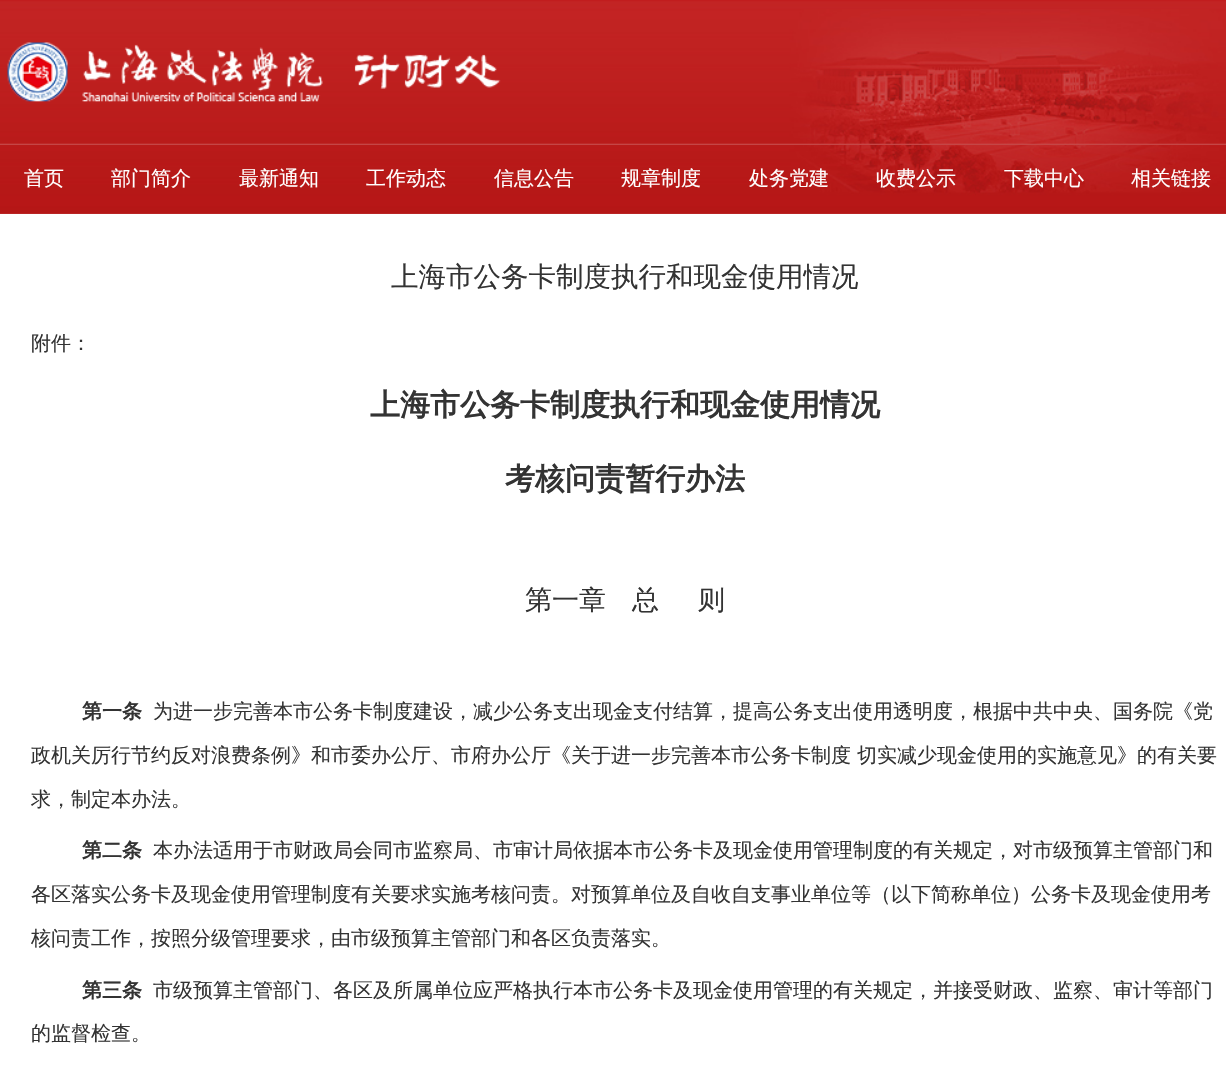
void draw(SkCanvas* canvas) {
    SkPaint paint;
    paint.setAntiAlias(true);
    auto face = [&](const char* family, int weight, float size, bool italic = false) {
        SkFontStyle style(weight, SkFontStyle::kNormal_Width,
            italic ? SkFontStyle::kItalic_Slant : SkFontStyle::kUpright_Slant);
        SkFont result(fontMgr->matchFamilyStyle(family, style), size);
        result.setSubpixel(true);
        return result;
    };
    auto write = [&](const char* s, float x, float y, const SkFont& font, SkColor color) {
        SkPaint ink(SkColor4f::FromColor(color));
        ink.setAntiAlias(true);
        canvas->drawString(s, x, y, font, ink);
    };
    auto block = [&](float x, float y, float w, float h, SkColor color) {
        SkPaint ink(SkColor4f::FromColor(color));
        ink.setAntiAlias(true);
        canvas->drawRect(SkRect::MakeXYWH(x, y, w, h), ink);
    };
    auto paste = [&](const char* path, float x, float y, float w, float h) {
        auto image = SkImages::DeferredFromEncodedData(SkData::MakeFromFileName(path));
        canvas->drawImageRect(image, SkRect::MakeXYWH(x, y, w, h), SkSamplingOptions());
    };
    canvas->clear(SK_ColorWHITE);
    paste("pic1.png", 0, 0, 1226, 144);
    block(0, 144, 1226, 1, SkColorSetRGB(197, 70, 70));
    paste("pic2.png", 0, 9, 1226, 135);
    paste("pic3.png", 7, 42, 494, 60);
    paste("pic4.png", 0, 213, 1226, 1);
    paste("pic5.png", 0, 145, 1226, 69);
    auto kFont1 = face("WenQuanYi Zen Hei", 500, 20);
    write("首页", 24, 185, kFont1, SK_ColorWHITE);
    write("部门简介", 111, 185, kFont1, SK_ColorWHITE);
    write("最新通知", 239, 185, kFont1, SK_ColorWHITE);
    write("工作动态", 366, 185, kFont1, SK_ColorWHITE);
    write("信息公告", 494, 185, kFont1, SK_ColorWHITE);
    write("规章制度", 621, 185, kFont1, SK_ColorWHITE);
    write("处务党建", 749, 185, kFont1, SK_ColorWHITE);
    write("收费公示", 876, 185, kFont1, SK_ColorWHITE);
    write("下载中心", 1004, 185, kFont1, SK_ColorWHITE);
    write("相关链接", 1131, 185, kFont1, SK_ColorWHITE);
    auto kFont2 = face("WenQuanYi Zen Hei", 500, 27.5f);
    write("上海市公务卡制度执行和现金使用情况", 391, 286, kFont2, SkColorSetRGB(51, 51, 51));
    write("附件：", 31, 350, kFont1, SkColorSetRGB(51, 51, 51));
    auto kFont3 = face("WenQuanYi Zen Hei", 700, 30);
    write("上海市公务卡制度执行和现金使用情况", 370, 415, kFont3, SkColorSetRGB(51, 51, 51));
    write("考核问责暂行办法", 505, 489, kFont3, SkColorSetRGB(51, 51, 51));
    auto kFont4 = face("WenQuanYi Zen Hei", 500, 27);
    write("第一章", 525, 609, kFont4, SkColorSetRGB(51, 51, 51));
    write("总", 632, 609, kFont4, SkColorSetRGB(51, 51, 51));
    write("则", 698, 609, kFont4, SkColorSetRGB(51, 51, 51));
    auto kFont5 = face("WenQuanYi Zen Hei", 700, 20);
    write("第一条", 82, 718, kFont5, SkColorSetRGB(51, 51, 51));
    write("为进一步完善本市公务卡制度建设，减少公务支出现金支付结算，提高公务支出使用透明度，根据中共中央、国务院《党", 153, 718, kFont1, SkColorSetRGB(51, 51, 51));
    write("政机关厉行节约反对浪费条例》和市委办公厅、市府办公厅《关于进一步完善本市公务卡制度", 31, 762, kFont1, SkColorSetRGB(51, 51, 51));
    write("切实减少现金使用的实施意见》的有关要", 857, 762, kFont1, SkColorSetRGB(51, 51, 51));
    write("求，制定本办法。", 31, 806, kFont1, SkColorSetRGB(51, 51, 51));
    write("第二条", 82, 857, kFont5, SkColorSetRGB(51, 51, 51));
    write("本办法适用于市财政局会同市监察局、市审计局依据本市公务卡及现金使用管理制度的有关规定，对市级预算主管部门和", 153, 857, kFont1, SkColorSetRGB(51, 51, 51));
    write("各区落实公务卡及现金使用管理制度有关要求实施考核问责。对预算单位及自收自支事业单位等（以下简称单位）公务卡及现金使用考", 31, 901, kFont1, SkColorSetRGB(51, 51, 51));
    write("核问责工作，按照分级管理要求，由市级预算主管部门和各区负责落实。", 31, 945, kFont1, SkColorSetRGB(51, 51, 51));
    write("第三条", 82, 997, kFont5, SkColorSetRGB(51, 51, 51));
    write("市级预算主管部门、各区及所属单位应严格执行本市公务卡及现金使用管理的有关规定，并接受财政、监察、审计等部门", 153, 997, kFont1, SkColorSetRGB(51, 51, 51));
    write("的监督检查。", 31, 1040, kFont1, SkColorSetRGB(51, 51, 51));
}
